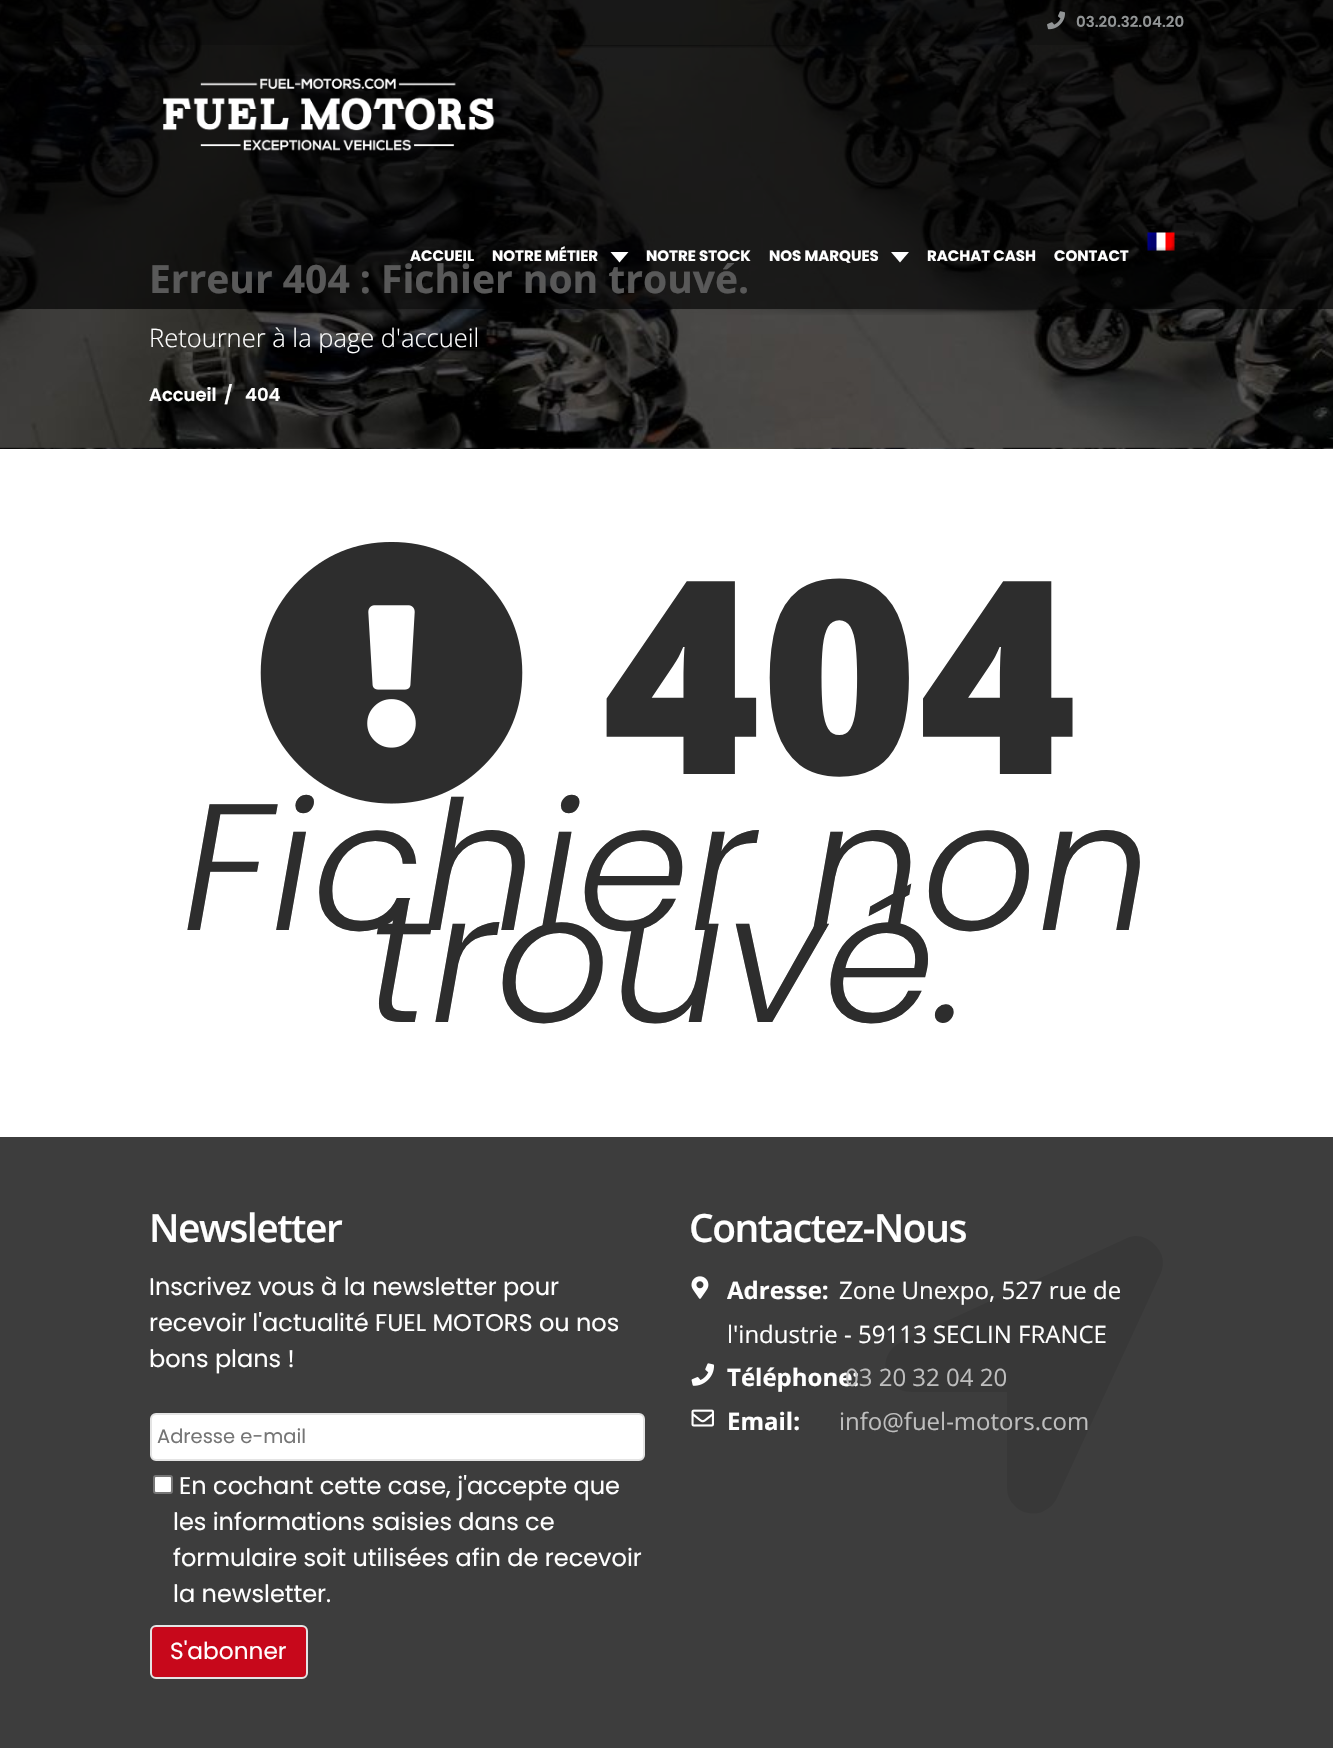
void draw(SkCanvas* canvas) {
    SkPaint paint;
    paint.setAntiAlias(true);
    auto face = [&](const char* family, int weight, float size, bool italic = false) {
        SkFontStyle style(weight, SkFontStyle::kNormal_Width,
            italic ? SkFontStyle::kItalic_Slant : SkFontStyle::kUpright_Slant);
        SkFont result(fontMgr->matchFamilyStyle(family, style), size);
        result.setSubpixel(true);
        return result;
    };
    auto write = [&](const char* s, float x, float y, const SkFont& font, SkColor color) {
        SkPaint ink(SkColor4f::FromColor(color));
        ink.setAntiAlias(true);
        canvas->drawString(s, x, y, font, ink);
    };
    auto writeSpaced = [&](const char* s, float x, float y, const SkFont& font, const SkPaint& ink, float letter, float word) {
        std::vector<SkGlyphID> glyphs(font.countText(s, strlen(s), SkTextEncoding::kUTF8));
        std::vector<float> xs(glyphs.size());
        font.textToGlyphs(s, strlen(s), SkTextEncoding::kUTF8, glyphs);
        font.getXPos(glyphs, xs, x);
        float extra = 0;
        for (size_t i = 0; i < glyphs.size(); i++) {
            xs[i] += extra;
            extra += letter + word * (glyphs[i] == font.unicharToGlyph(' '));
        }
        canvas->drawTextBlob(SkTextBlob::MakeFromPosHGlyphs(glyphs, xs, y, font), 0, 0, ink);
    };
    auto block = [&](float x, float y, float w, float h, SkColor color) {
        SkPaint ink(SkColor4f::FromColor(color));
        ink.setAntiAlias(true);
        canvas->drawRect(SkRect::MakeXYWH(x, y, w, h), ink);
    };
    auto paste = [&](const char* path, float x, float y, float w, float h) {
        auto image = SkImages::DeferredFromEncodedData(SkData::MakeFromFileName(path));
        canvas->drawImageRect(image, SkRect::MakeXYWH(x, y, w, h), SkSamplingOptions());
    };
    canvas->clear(SK_ColorWHITE);
    paste("pic6.png", 0, 0, 1333, 449);
    auto kFont1 = face("Open Sans", 700, 39);
    write("Erreur 404 : Fichier non trouvé.", 149, 293, kFont1, SK_ColorWHITE);
    block(0, 0, 1333, 309, SkColorSetARGB(166, 0, 0, 0));
    block(0, 0, 1333, 45, SkColorSetARGB(51, 0, 0, 0));
    paste("pic1.png", 1047, 11, 18, 19);
    auto kFont2 = face("Poppins", 600, 15);
    write("03.20.32.04.20", 1076, 27, kFont2, SkColorSetRGB(146, 149, 150));
    paste("pic2.png", 396, 45, 580, 3);
    paste("pic3.png", 163, 77, 332, 74);
    paste("pic4.png", 1147, 232, 28, 19);
    auto kFont3 = face("Poppins", 700, 15);
    write("ACCUEIL", 410, 261, kFont3, SK_ColorWHITE);
    write("NOTRE MÉTIER", 492, 261, kFont3, SK_ColorWHITE);
    paint.setColor(SK_ColorWHITE);
    canvas->drawPath(SkPathBuilder().moveTo(610.5f, 252).lineTo(628.5f, 252).lineTo(619.5f, 262.5f).close().detach(), paint);
    write("NOTRE STOCK", 646, 261, kFont3, SK_ColorWHITE);
    write("NOS MARQUES", 769, 261, kFont3, SK_ColorWHITE);
    canvas->drawPath(SkPathBuilder().moveTo(891, 252).lineTo(909, 252).lineTo(900, 262.5f).close().detach(), paint);
    write("RACHAT CASH", 927, 261, kFont3, SK_ColorWHITE);
    write("CONTACT", 1054, 261, kFont3, SK_ColorWHITE);
    paste("pic5.png", 313, 309, 726, 6);
    auto kFont4 = face("Open Sans", 300, 25.5f);
    write("Retourner à la page d'accueil", 149, 347, kFont4, SK_ColorWHITE);
    auto kFont5 = face("Poppins", 600, 18);
    write("Accueil", 149, 401, kFont5, SK_ColorWHITE);
    write("/", 224, 401, kFont5, SK_ColorWHITE);
    write("404", 245, 401, kFont5, SK_ColorWHITE);
    paste("pic7.png", 260, 542, 263, 262);
    auto kFont6 = face("Open Sans", 800, 270);
    write("404", 602, 774, kFont6, SkColorSetRGB(45, 45, 45));
    auto kFont7 = face("Poppins", 300, 180, true);
    write("Fichier non", 182, 930, kFont7, SkColorSetRGB(45, 45, 45));
    write("trouvé.", 366, 1022, kFont7, SkColorSetRGB(45, 45, 45));
    block(0, 1137, 1333, 611, SkColorSetRGB(61, 61, 61));
    auto kFont8 = face("Open Sans", 600, 39);
    writeSpaced("Newsletter", 149, 1242, kFont8, paint, -1.5f, 0);
    auto kFont9 = face("Poppins", 400, 24);
    write("Inscrivez vous à la newsletter pour", 149, 1295, kFont9, SK_ColorWHITE);
    write("recevoir l'actualité FUEL MOTORS ou nos", 149, 1331, kFont9, SK_ColorWHITE);
    write("bons plans !", 149, 1367, kFont9, SK_ColorWHITE);
    canvas->drawRoundRect(SkRect::MakeXYWH(151, 1414, 493, 46), 5, 5, paint);
    paint.setStyle(SkPaint::kStroke_Style);
    paint.setStrokeWidth(2);
    paint.setColor(SkColorSetRGB(228, 228, 228));
    canvas->drawRoundRect(SkRect::MakeXYWH(151, 1414, 493, 46), 5, 5, paint);
    auto kFont10 = face("Poppins", 400, 19.5f);
    write("Adresse e-mail", 157, 1443, kFont10, SkColorSetRGB(117, 117, 117));
    paint.setStyle(SkPaint::kFill_Style);
    paint.setColor(SK_ColorWHITE);
    canvas->drawRoundRect(SkRect::MakeXYWH(154, 1476, 18, 17), 2, 2, paint);
    paint.setStyle(SkPaint::kStroke_Style);
    paint.setColor(SkColorSetRGB(118, 118, 118));
    canvas->drawRoundRect(SkRect::MakeXYWH(154, 1476, 18, 17), 2, 2, paint);
    write("En cochant cette case, j'accepte que", 179, 1494, kFont9, SK_ColorWHITE);
    write("les informations saisies dans ce", 173, 1530, kFont9, SK_ColorWHITE);
    write("formulaire soit utilisées afin de recevoir", 173, 1566, kFont9, SK_ColorWHITE);
    write("la newsletter.", 173, 1602, kFont9, SK_ColorWHITE);
    paint.setStyle(SkPaint::kFill_Style);
    paint.setColor(SkColorSetRGB(199, 8, 27));
    canvas->drawRoundRect(SkRect::MakeXYWH(151, 1626, 156, 52), 5, 5, paint);
    paint.setStyle(SkPaint::kStroke_Style);
    paint.setColor(SkColorSetRGB(228, 228, 228));
    canvas->drawRoundRect(SkRect::MakeXYWH(151, 1626, 156, 52), 5, 5, paint);
    auto kFont11 = face("Poppins", 400, 23.25f);
    write("S'abonner", 170, 1659, kFont11, SK_ColorWHITE);
    paint.setStyle(SkPaint::kFill_Style);
    paint.setColor(SK_ColorWHITE);
    writeSpaced("Contactez-Nous", 689, 1242, kFont8, paint, -1.5f, 0);
    paint.setColor(SkColorSetRGB(56, 56, 56));
    canvas->drawPath(SkPathBuilder().moveTo(1127, 1238).cubicTo(1137, 1234, 1146, 1236, 1155, 1245).cubicTo(1163, 1253, 1165, 1262, 1161, 1273).lineTo(1057, 1498).cubicTo(1054, 1504, 1050, 1508, 1044, 1511).cubicTo(1039, 1514, 1033, 1514, 1028, 1513).cubicTo(1022, 1512, 1017, 1509, 1013, 1504).cubicTo(1009, 1500, 1007, 1494, 1007, 1488).lineTo(1007, 1392).lineTo(912, 1392).cubicTo(903, 1392, 896, 1389, 891, 1382).cubicTo(886, 1376, 884, 1368, 886, 1360).cubicTo(888, 1352, 893, 1346, 901, 1342).close().detach(), paint);
    paste("pic8.png", 691, 1276, 18, 23);
    auto kFont12 = face("Open Sans", 700, 24);
    write("Adresse:", 727, 1299, kFont12, SK_ColorWHITE);
    auto kFont13 = face("Open Sans", 400, 24);
    write("Zone Unexpo, 527 rue de", 839, 1299, kFont13, SK_ColorWHITE);
    write("l'industrie - 59113 SECLIN FRANCE", 727, 1343, kFont13, SK_ColorWHITE);
    paste("pic9.png", 691, 1363, 23, 23);
    write("Téléphone:", 727, 1386, kFont12, SK_ColorWHITE);
    write("03 20 32 04 20", 845, 1386, kFont13, SkColorSetRGB(190, 190, 190));
    paste("pic10.png", 691, 1409, 23, 18);
    write("Email:", 727, 1430, kFont12, SK_ColorWHITE);
    write("info@fuel-motors.com", 839, 1430, kFont13, SkColorSetRGB(190, 190, 190));
}
